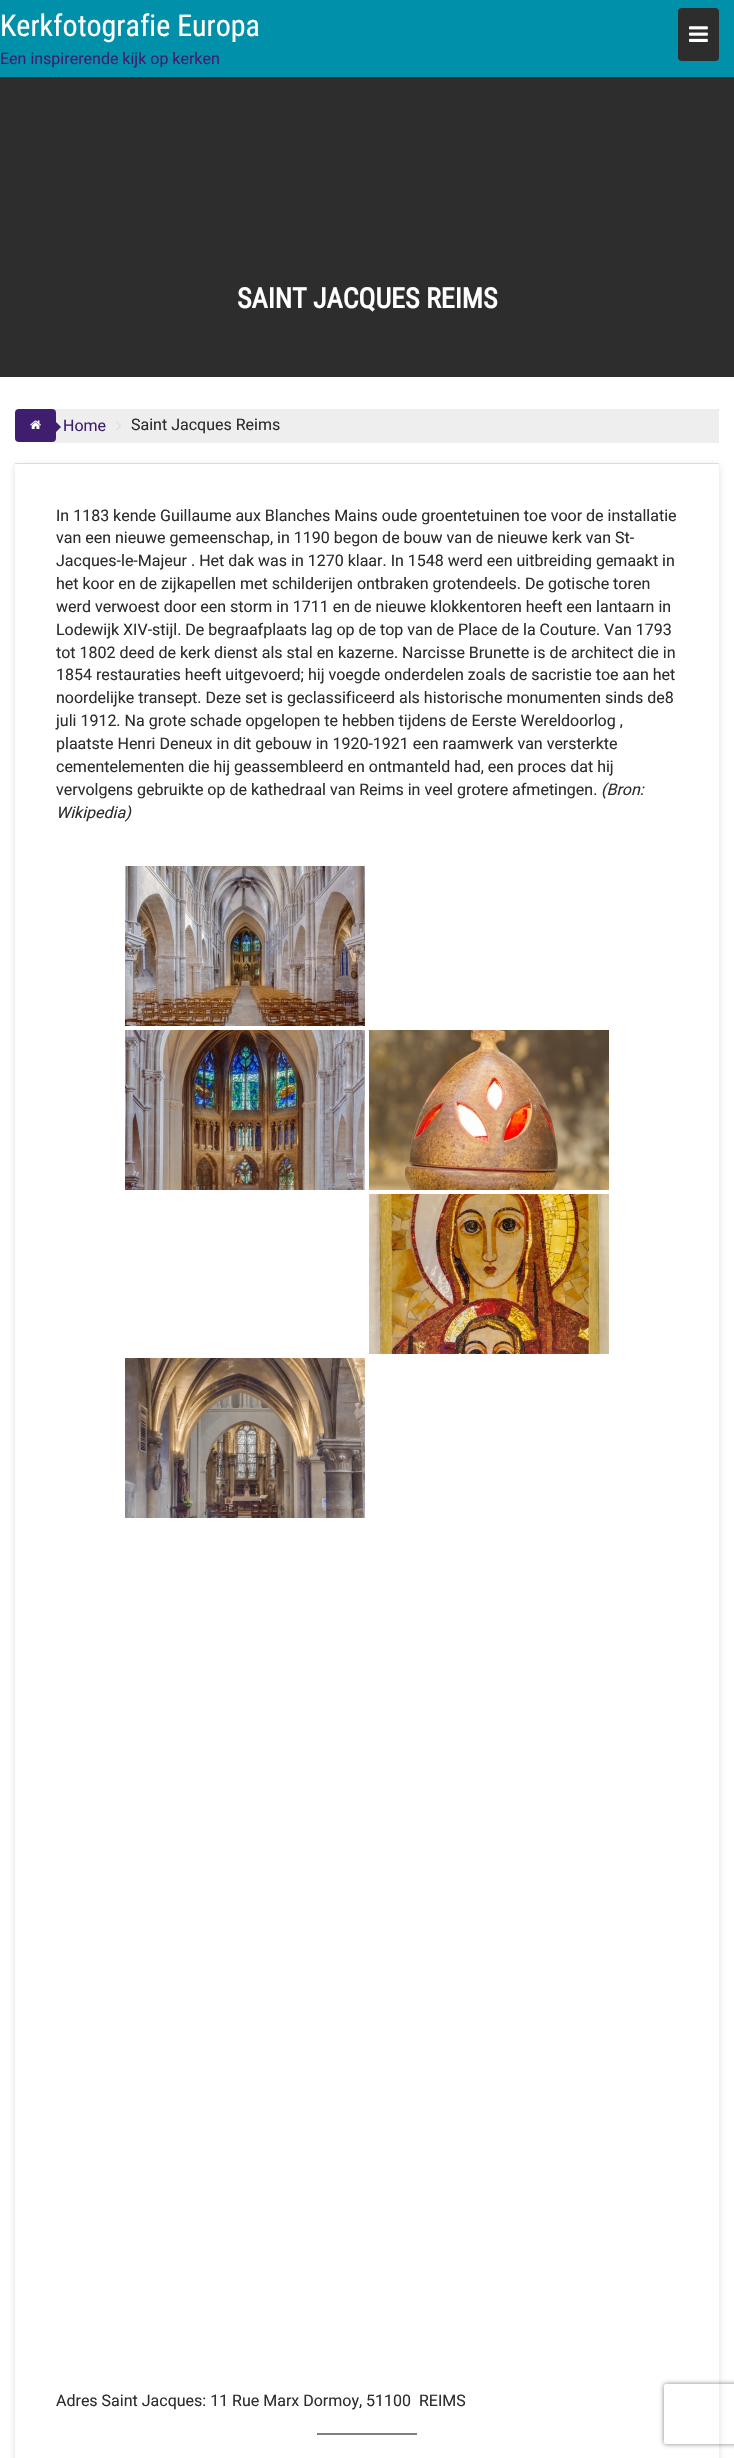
void draw(SkCanvas* canvas) {
    SkPaint paint;
    paint.setAntiAlias(true);
    auto face = [&](const char* family, int weight, float size, bool italic = false) {
        SkFontStyle style(weight, SkFontStyle::kNormal_Width,
            italic ? SkFontStyle::kItalic_Slant : SkFontStyle::kUpright_Slant);
        SkFont result(fontMgr->matchFamilyStyle(family, style), size);
        result.setSubpixel(true);
        return result;
    };
    auto write = [&](const char* s, float x, float y, const SkFont& font, SkColor color) {
        SkPaint ink(SkColor4f::FromColor(color));
        ink.setAntiAlias(true);
        canvas->drawString(s, x, y, font, ink);
    };
    auto block = [&](float x, float y, float w, float h, SkColor color) {
        SkPaint ink(SkColor4f::FromColor(color));
        ink.setAntiAlias(true);
        canvas->drawRect(SkRect::MakeXYWH(x, y, w, h), ink);
    };
    auto card = [&](float x, float y, float w, float h, float radius, SkColor color) {
        SkPaint ink(SkColor4f::FromColor(color));
        ink.setAntiAlias(true);
        canvas->drawRoundRect(SkRect::MakeXYWH(x, y, w, h), radius, radius, ink);
    };
    auto paste = [&](const char* path, float x, float y, float w, float h) {
        auto image = SkImages::DeferredFromEncodedData(SkData::MakeFromFileName(path));
        canvas->drawImageRect(image, SkRect::MakeXYWH(x, y, w, h), SkSamplingOptions());
    };
    canvas->clear(SK_ColorWHITE);
    block(0, 0, 734, 77, SkColorSetRGB(0, 144, 169));
    auto kFont1 = face("Roboto Condensed", 400, 30);
    write("Kerkfotografie Europa", 0, 36, kFont1, SK_ColorWHITE);
    card(678, 8, 41, 53, 4, SkColorSetRGB(45, 45, 45));
    paste("pic1.png", 689, 26, 19, 16);
    auto kFont2 = face("Roboto", 400, 16);
    write("Een inspirerende kijk op kerken", 0, 64, kFont2, SkColorSetRGB(63, 30, 111));
    block(0, 77, 734, 300, SkColorSetRGB(45, 45, 45));
    auto kFont3 = face("Roboto Condensed", 700, 28);
    write("SAINT JACQUES REIMS", 237, 308, kFont3, SK_ColorWHITE);
    block(53, 409, 666, 34, SkColorSetRGB(238, 238, 239));
    card(15, 409, 41, 33, 4, SkColorSetRGB(63, 30, 111));
    paste("pic2.png", 30, 420, 11, 9);
    paint.setColor(SkColorSetRGB(63, 30, 111));
    canvas->drawPath(SkPathBuilder().moveTo(56, 432).lineTo(56, 422).lineTo(61, 427).close().detach(), paint);
    write("Home", 63, 431, kFont2, SkColorSetRGB(63, 30, 111));
    paste("pic3.png", 116, 421, 5, 9);
    write("Saint Jacques Reims", 131, 430, kFont2, SkColorSetRGB(45, 45, 45));
    paint.setColor(SkColorSetARGB(33, 0, 0, 0));
    paint.setMaskFilter(SkMaskFilter::MakeBlur(kNormal_SkBlurStyle, 3));
    canvas->drawRoundRect(SkRect::MakeXYWH(15, 465, 704, 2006), 4, 4, paint);
    paint.setMaskFilter(nullptr);
    card(15, 463, 704, 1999, 4, SK_ColorWHITE);
    block(15, 463, 704, 1, SkColorSetRGB(221, 221, 221));
    write("In 1183 kende Guillaume aux Blanches Mains oude groentetuinen toe voor de installatie", 56, 521, kFont2, SkColorSetRGB(45, 45, 45));
    write("van een nieuwe gemeenschap, in 1190 begon de bouw van de nieuwe kerk van St-", 56, 543, kFont2, SkColorSetRGB(45, 45, 45));
    write("Jacques-le-Majeur . Het dak was in 1270 klaar. In 1548 werd een uitbreiding gemaakt in", 56, 566, kFont2, SkColorSetRGB(45, 45, 45));
    write("het koor en de zijkapellen met schilderijen ontbraken grotendeels. De gotische toren", 56, 589, kFont2, SkColorSetRGB(45, 45, 45));
    write("werd verwoest door een storm in 1711 en de nieuwe klokkentoren heeft een lantaarn in", 56, 612, kFont2, SkColorSetRGB(45, 45, 45));
    write("Lodewijk XIV-stijl. De begraafplaats lag op de top van de Place de la Couture. Van 1793", 56, 635, kFont2, SkColorSetRGB(45, 45, 45));
    write("tot 1802 deed de kerk dienst als stal en kazerne. Narcisse Brunette is de architect die in", 56, 658, kFont2, SkColorSetRGB(45, 45, 45));
    write("1854 restauraties heeft uitgevoerd; hij voegde onderdelen zoals de sacristie toe aan het", 56, 680, kFont2, SkColorSetRGB(45, 45, 45));
    write("noordelijke transept. Deze set is geclassificeerd als historische monumenten sinds de8", 56, 703, kFont2, SkColorSetRGB(45, 45, 45));
    write("juli 1912. Na grote schade opgelopen te hebben tijdens de Eerste Wereldoorlog ,", 56, 726, kFont2, SkColorSetRGB(45, 45, 45));
    write("plaatste Henri Deneux in dit gebouw in 1920-1921 een raamwerk van versterkte", 56, 749, kFont2, SkColorSetRGB(45, 45, 45));
    write("cementelementen die hij geassembleerd en ontmanteld had, een proces dat hij", 56, 772, kFont2, SkColorSetRGB(45, 45, 45));
    write("vervolgens gebruikte op de kathedraal van Reims in veel grotere afmetingen.", 56, 795, kFont2, SkColorSetRGB(45, 45, 45));
    auto kFont4 = face("Roboto", 400, 16, true);
    write("(Bron:", 601, 795, kFont4, SkColorSetRGB(45, 45, 45));
    write("Wikipedia)", 56, 818, kFont4, SkColorSetRGB(45, 45, 45));
    paste("pic4.png", 125, 866, 240, 160);
    paste("pic5.png", 125, 1030, 240, 160);
    paste("pic6.png", 369, 1030, 240, 160);
    paste("pic7.png", 369, 1194, 240, 160);
    paste("pic8.png", 125, 1358, 240, 160);
    write("Adres Saint Jacques: 11 Rue Marx Dormoy, 51100  REIMS", 56, 2406, kFont2, SkColorSetRGB(45, 45, 45));
    block(317, 2433, 100, 2, SkColorSetRGB(128, 128, 128));
    canvas->save();
    canvas->clipPath(SkPathBuilder(SkPathFillType::kEvenOdd).moveTo(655, 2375).lineTo(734, 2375).lineTo(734, 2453).lineTo(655, 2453).close().moveTo(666, 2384).lineTo(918, 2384).cubicTo(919, 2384, 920, 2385, 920, 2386).lineTo(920, 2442).cubicTo(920, 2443, 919, 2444, 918, 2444).lineTo(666, 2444).cubicTo(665, 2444, 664, 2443, 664, 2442).lineTo(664, 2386).cubicTo(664, 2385, 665, 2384, 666, 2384).close().detach(), true);
    paint.setColor(SkColorSetRGB(128, 128, 128));
    paint.setMaskFilter(SkMaskFilter::MakeBlur(kNormal_SkBlurStyle, 2.5f));
    canvas->drawRoundRect(SkRect::MakeXYWH(664, 2384, 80, 60), 2, 2, paint);
    paint.setMaskFilter(nullptr);
    canvas->restore();
}
